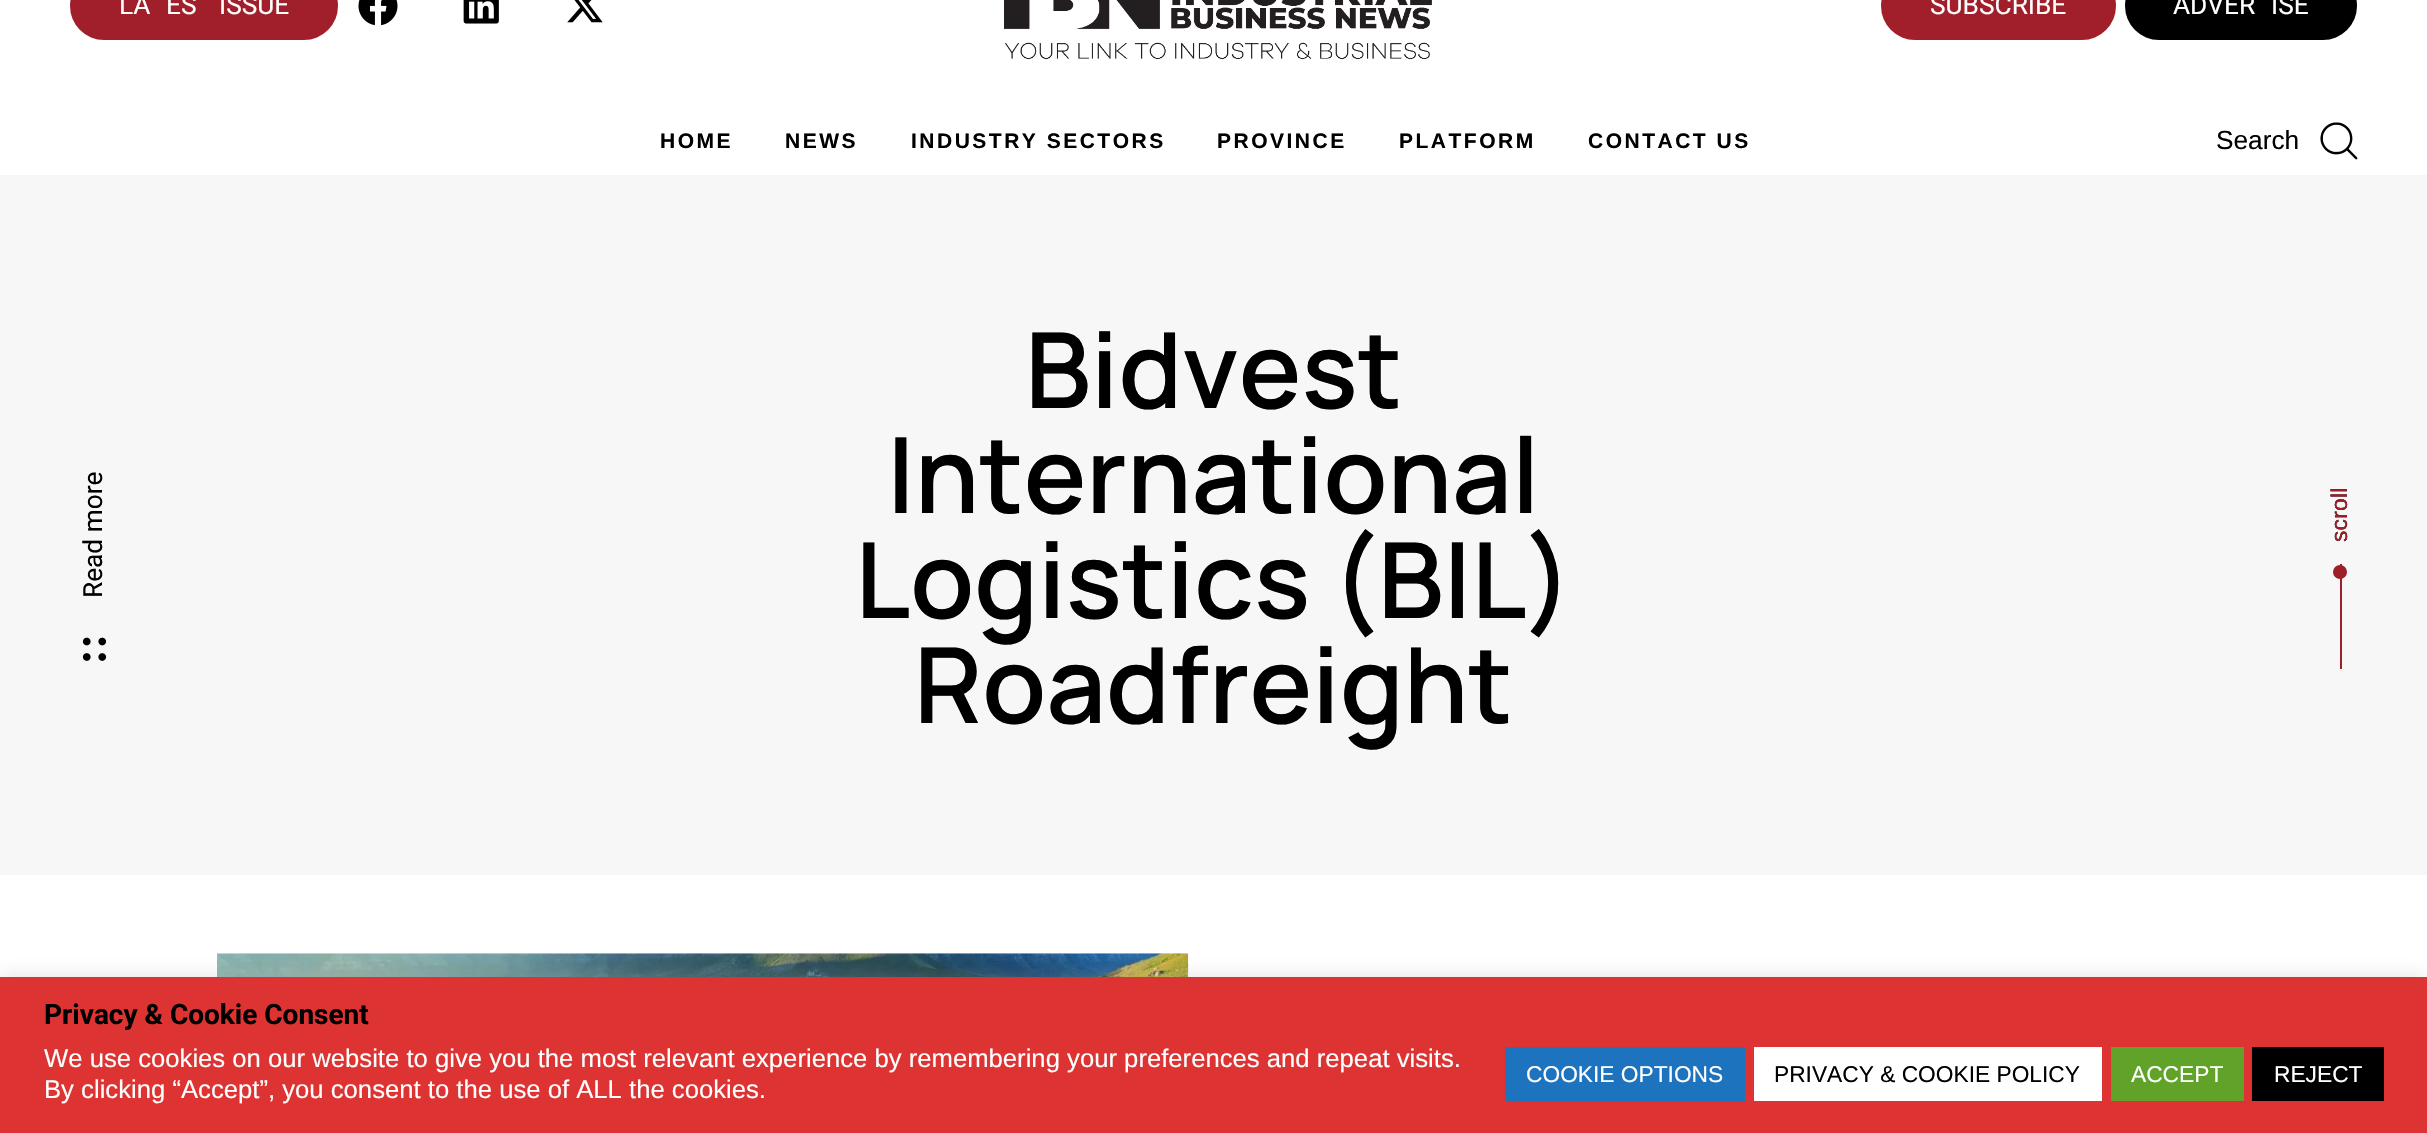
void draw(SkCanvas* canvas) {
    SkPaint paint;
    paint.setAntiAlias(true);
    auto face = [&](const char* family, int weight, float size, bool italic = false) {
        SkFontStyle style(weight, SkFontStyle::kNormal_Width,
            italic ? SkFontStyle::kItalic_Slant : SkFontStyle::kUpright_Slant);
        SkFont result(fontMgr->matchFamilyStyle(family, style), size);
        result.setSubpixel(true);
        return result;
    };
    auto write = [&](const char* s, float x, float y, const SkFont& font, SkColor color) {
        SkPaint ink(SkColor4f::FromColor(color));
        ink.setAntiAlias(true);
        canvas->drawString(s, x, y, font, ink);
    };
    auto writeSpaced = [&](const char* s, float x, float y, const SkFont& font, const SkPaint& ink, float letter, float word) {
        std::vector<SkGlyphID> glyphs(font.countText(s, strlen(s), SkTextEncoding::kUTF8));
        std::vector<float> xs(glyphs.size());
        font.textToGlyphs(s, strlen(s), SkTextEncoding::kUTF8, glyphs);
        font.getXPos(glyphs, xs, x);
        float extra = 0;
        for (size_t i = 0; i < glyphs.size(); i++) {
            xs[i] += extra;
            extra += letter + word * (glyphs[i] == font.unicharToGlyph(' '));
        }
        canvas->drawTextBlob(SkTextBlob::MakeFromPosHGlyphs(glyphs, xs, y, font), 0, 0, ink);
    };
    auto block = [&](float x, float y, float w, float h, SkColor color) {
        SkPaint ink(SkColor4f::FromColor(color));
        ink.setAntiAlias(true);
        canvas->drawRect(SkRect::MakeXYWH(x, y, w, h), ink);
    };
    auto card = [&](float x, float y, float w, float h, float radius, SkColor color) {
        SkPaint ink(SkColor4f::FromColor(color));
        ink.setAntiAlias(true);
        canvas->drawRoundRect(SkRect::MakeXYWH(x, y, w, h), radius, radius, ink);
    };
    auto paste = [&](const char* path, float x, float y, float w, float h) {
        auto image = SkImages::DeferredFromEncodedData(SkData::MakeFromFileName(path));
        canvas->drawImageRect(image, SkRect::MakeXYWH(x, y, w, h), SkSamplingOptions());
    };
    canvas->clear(SK_ColorWHITE);
    card(70, -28, 268, 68, 34, SkColorSetRGB(160, 31, 43));
    auto kFont1 = face("Roboto", 400, 26.25f);
    write("LA", 119, 14, kFont1, SK_ColorWHITE);
    write("ES", 166, 14, kFont1, SK_ColorWHITE);
    write("ISSUE", 219, 14, kFont1, SK_ColorWHITE);
    paste("pic1.png", 358, 0, 40, 26);
    paste("pic2.png", 463, 0, 36, 24);
    paste("pic3.png", 567, 0, 36, 23);
    paste("pic4.png", 1004, 0, 428, 60);
    card(1881, -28, 235, 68, 34, SkColorSetRGB(160, 31, 43));
    write("SUBSCRIBE", 1930, 14, kFont1, SK_ColorWHITE);
    card(2125, -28, 232, 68, 34, SK_ColorBLACK);
    write("ADVER", 2173, 14, kFont1, SK_ColorWHITE);
    write("ISE", 2271, 14, kFont1, SK_ColorWHITE);
    auto kFont2 = face("Liberation Sans", 700, 21);
    paint.setColor(SK_ColorBLACK);
    writeSpaced("HOME", 660, 148, kFont2, paint, 2.5f, 0);
    writeSpaced("NEWS", 785, 148, kFont2, paint, 2.5f, 0);
    writeSpaced("INDUSTRY SECTORS", 911, 148, kFont2, paint, 2.5f, 0);
    writeSpaced("PROVINCE", 1217, 148, kFont2, paint, 2.5f, 0);
    writeSpaced("PLATFORM", 1399, 148, kFont2, paint, 2.5f, 0);
    writeSpaced("CONTACT US", 1588, 148, kFont2, paint, 2.5f, 0);
    auto kFont3 = face("Liberation Sans", 400, 26.25f);
    write("Search", 2216, 149, kFont3, SK_ColorBLACK);
    paste("pic5.png", 2320, 122, 38, 38);
    block(0, 175, 2427, 700, SkColorSetRGB(247, 247, 247));
    canvas->save();
    canvas->rotate(-90, 102, 598);
    write("Read more", 102, 598, kFont1, SK_ColorBLACK);
    canvas->restore();
    paste("pic6.png", 82, 637, 25, 24);
    auto kFont4 = face("Liberation Sans", 400, 22.75f);
    canvas->save();
    canvas->rotate(-90, 2347, 542);
    writeSpaced("scroll", 2347, 542, kFont4, paint, 0.25f, 0);
    canvas->restore();
    paint.setColor(SkColorSetRGB(157, 31, 42));
    canvas->save();
    canvas->rotate(-90, 2347, 542);
    writeSpaced("scroll", 2347, 542, kFont4, paint, 0.25f, 0);
    canvas->restore();
    block(2340, 564, 2, 105, SkColorSetRGB(157, 31, 42));
    canvas->drawCircle(2340, 572, 7, paint);
    auto kFont5 = face("Manrope", 600, 105);
    write("Bidvest", 1025, 408, kFont5, SK_ColorBLACK);
    write("International", 887, 513, kFont5, SK_ColorBLACK);
    write("Logistics (BIL)", 855, 618, kFont5, SK_ColorBLACK);
    write("Roadfreight", 914, 723, kFont5, SK_ColorBLACK);
    paste("pic7.png", 217, 953, 972, 24);
    paint.setColor(SkColorSetARGB(77, 172, 171, 171));
    paint.setMaskFilter(SkMaskFilter::MakeBlur(kNormal_SkBlurStyle, 9));
    canvas->drawRect(SkRect::MakeXYWH(0, 975, 2427, 157), paint);
    paint.setMaskFilter(nullptr);
    block(0, 977, 2427, 156, SkColorSetRGB(221, 51, 51));
    auto kFont6 = face("Roboto", 700, 28);
    write("Privacy & Cookie Consent", 44, 1024, kFont6, SK_ColorBLACK);
    auto kFont7 = face("Liberation Sans", 400, 25.67f);
    write("We use cookies on our website to give you the most relevant experience by remembering your preferences and repeat visits.", 44, 1067, kFont7, SK_ColorWHITE);
    write("By clicking “Accept”, you consent to the use of ALL the cookies.", 44, 1098, kFont7, SK_ColorWHITE);
    block(1505, 1047, 240, 54, SkColorSetRGB(30, 115, 190));
    write("COOKIE OPTIONS", 1526, 1082, kFont4, SK_ColorWHITE);
    block(1754, 1047, 348, 54, SK_ColorWHITE);
    write("PRIVACY & COOKIE POLICY", 1774, 1082, kFont4, SK_ColorBLACK);
    block(2111, 1047, 133, 54, SkColorSetRGB(97, 162, 41));
    write("ACCEPT", 2131, 1082, kFont4, SK_ColorWHITE);
    block(2252, 1047, 132, 54, SK_ColorBLACK);
    write("REJECT", 2274, 1082, kFont4, SK_ColorWHITE);
}
